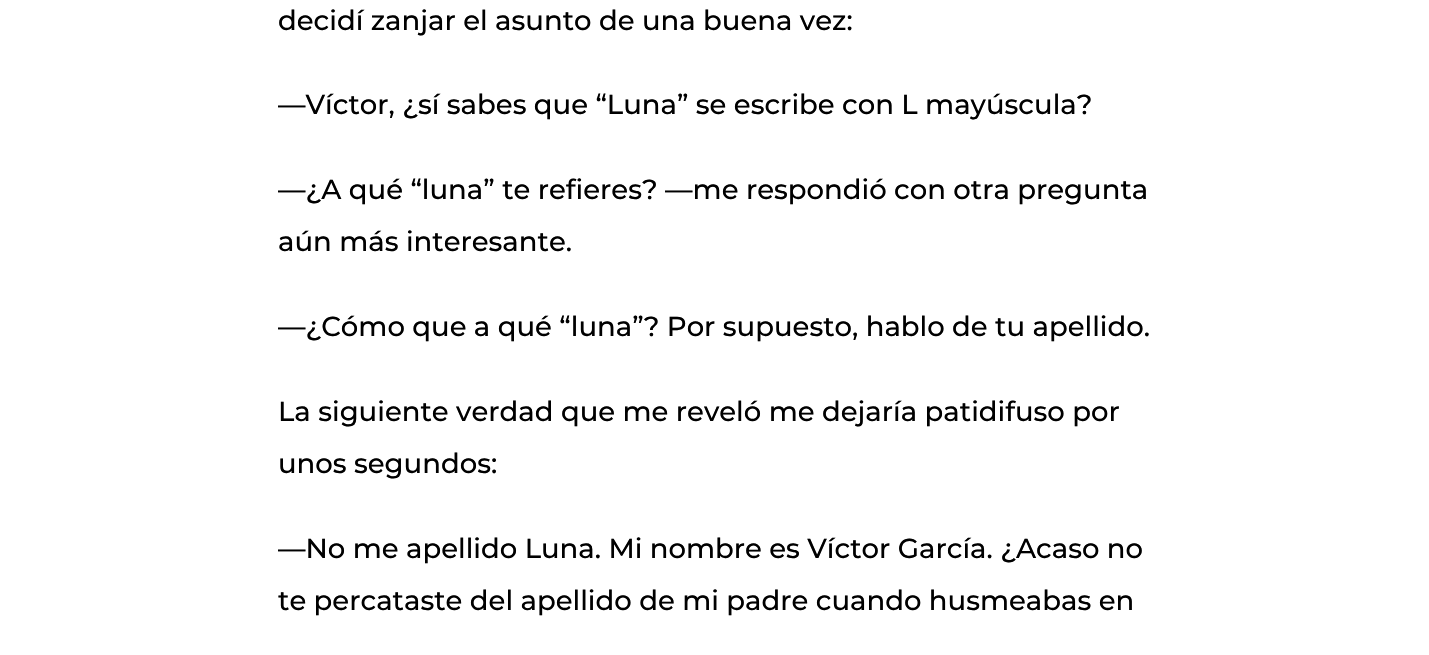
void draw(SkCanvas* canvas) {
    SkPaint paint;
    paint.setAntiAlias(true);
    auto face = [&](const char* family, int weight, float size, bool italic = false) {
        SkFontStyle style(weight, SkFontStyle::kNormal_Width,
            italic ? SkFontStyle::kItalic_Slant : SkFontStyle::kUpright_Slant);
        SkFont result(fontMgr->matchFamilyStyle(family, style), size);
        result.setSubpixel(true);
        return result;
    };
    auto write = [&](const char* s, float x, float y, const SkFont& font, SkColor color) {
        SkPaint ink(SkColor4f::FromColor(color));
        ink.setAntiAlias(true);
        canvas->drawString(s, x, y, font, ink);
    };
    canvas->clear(SK_ColorWHITE);
    auto kFont1 = face("Montserrat", 500, 27.5f);
    write("decidí zanjar el asunto de una buena vez:", 278, 30, kFont1, SK_ColorBLACK);
    write("—Víctor, ¿sí sabes que “Luna” se escribe con L mayúscula?", 278, 114, kFont1, SK_ColorBLACK);
    write("—¿A qué “luna” te refieres? —me respondió con otra pregunta", 278, 199, kFont1, SK_ColorBLACK);
    write("aún más interesante.", 278, 251, kFont1, SK_ColorBLACK);
    write("—¿Cómo que a qué “luna”? Por supuesto, hablo de tu apellido.", 278, 336, kFont1, SK_ColorBLACK);
    write("La siguiente verdad que me reveló me dejaría patidifuso por", 278, 421, kFont1, SK_ColorBLACK);
    write("unos segundos:", 278, 473, kFont1, SK_ColorBLACK);
    write("—No me apellido Luna. Mi nombre es Víctor García. ¿Acaso no", 278, 558, kFont1, SK_ColorBLACK);
    write("te percataste del apellido de mi padre cuando husmeabas en", 278, 610, kFont1, SK_ColorBLACK);
}
